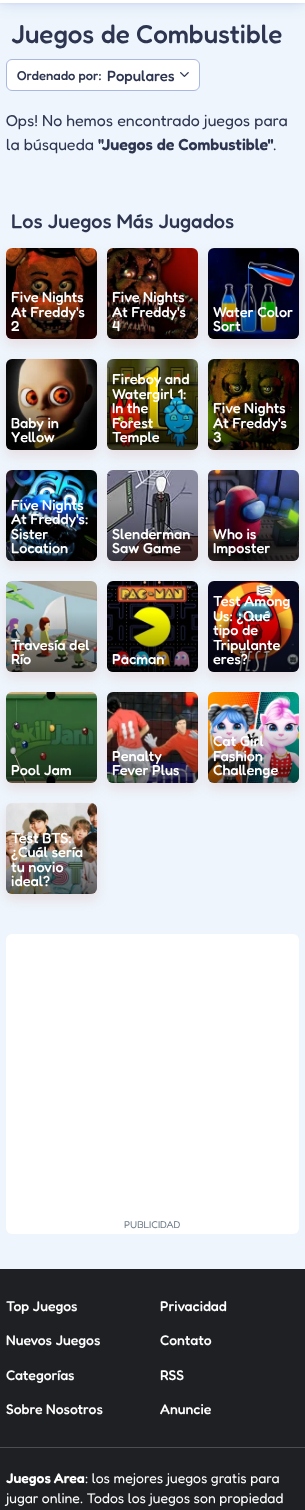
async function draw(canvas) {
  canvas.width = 305;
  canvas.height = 1510;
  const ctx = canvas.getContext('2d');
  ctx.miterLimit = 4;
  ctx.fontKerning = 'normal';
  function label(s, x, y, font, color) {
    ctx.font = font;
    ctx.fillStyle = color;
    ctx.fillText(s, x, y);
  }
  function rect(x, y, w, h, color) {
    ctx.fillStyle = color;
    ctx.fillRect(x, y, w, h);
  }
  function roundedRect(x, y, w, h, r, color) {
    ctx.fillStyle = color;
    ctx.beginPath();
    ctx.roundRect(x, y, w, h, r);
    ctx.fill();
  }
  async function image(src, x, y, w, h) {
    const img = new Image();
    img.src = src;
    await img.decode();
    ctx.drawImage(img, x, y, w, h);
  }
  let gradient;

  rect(0, 0, 305, 1510, '#eef5fc');
  ctx.fillStyle = '#193da90d';
  ctx.filter = 'blur(1px)';
  ctx.beginPath();
  ctx.rect(0, -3, 305, 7);
  ctx.fill();
  ctx.filter = 'none';
  ctx.fillStyle = '#193da926';
  ctx.filter = 'blur(7.5px)';
  ctx.beginPath();
  ctx.rect(0, -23, 305, 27);
  ctx.fill();
  ctx.filter = 'none';
  rect(0, 0, 305, 3, '#fff');
  label('Juegos de Combustible', 11, 43, '300 26px Fredoka', '#2d3550');
  ctx.fillStyle = '#fff';
  ctx.beginPath();
  ctx.roundRect(6.5, 59.5, 193, 31, 5.5);
  ctx.fill();
  ctx.strokeStyle = '#aab8e1';
  ctx.stroke();
  label('Ordenado por:', 17, 80, '300 13px Fredoka', '#2d3550');
  label('Populares', 107, 81, '300 15px Fredoka', '#2d3550');
  await image('assets/img1.png', 180, 72, 9, 5);
  label('Ops! No hemos encontrado juegos para', 6, 126, '300 16px "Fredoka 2"', '#2d3550');
  label('la búsqueda', 6, 150, '300 16px "Fredoka 2"', '#2d3550');
  label('"Juegos de Combustible"', 98, 150, '600 16px Fredoka', '#2d3550');
  label('.', 273, 150, '300 16px "Fredoka 2"', '#2d3550');
  label('Los Juegos Más Jugados', 11, 228, '300 20px Fredoka', '#2d3550');
  ctx.fillStyle = '#d398983d';
  ctx.filter = 'blur(6px)';
  ctx.beginPath();
  ctx.roundRect(6, 254, 91, 91, 6);
  ctx.fill();
  ctx.filter = 'none';
  await image('assets/img2.png', 6, 248, 91, 91);
  gradient = ctx.createLinearGradient(51, 279, 52, 339);
  gradient.addColorStop(0, '#00000000');
  gradient.addColorStop(1, '#0000008c');
  ctx.fillStyle = gradient;
  ctx.beginPath();
  ctx.roundRect(6, 279, 91, 60, [0, 0, 6, 6]);
  ctx.fill();
  label('Five Nights', 11, 302, '300 14.5px Fredoka', '#fff');
  label('At Freddy\'s', 11, 317, '300 14.5px Fredoka', '#fff');
  label('2', 11, 331, '300 14.5px Fredoka', '#fff');
  ctx.fillStyle = '#d398983d';
  ctx.filter = 'blur(6px)';
  ctx.beginPath();
  ctx.roundRect(107, 254, 91, 91, 6);
  ctx.fill();
  ctx.filter = 'none';
  await image('assets/img3.png', 107, 248, 91, 91);
  gradient = ctx.createLinearGradient(153, 279, 153, 339);
  gradient.addColorStop(0, '#00000000');
  gradient.addColorStop(1, '#0000008c');
  ctx.fillStyle = gradient;
  ctx.beginPath();
  ctx.roundRect(107, 279, 91, 60, [0, 0, 6, 6]);
  ctx.fill();
  label('Five Nights', 112, 302, '300 14.5px Fredoka', '#fff');
  label('At Freddy\'s', 112, 317, '300 14.5px Fredoka', '#fff');
  label('4', 112, 331, '300 14.5px Fredoka', '#fff');
  ctx.fillStyle = '#d398983d';
  ctx.filter = 'blur(6px)';
  ctx.beginPath();
  ctx.roundRect(208, 254, 91, 91, 6);
  ctx.fill();
  ctx.filter = 'none';
  await image('assets/img4.png', 208, 248, 91, 91);
  gradient = ctx.createLinearGradient(254, 279, 254, 339);
  gradient.addColorStop(0, '#00000000');
  gradient.addColorStop(1, '#0000008c');
  ctx.fillStyle = gradient;
  ctx.beginPath();
  ctx.roundRect(208, 279, 91, 60, [0, 0, 6, 6]);
  ctx.fill();
  label('Water Color', 213, 317, '300 14.5px Fredoka', '#fff');
  label('Sort', 213, 331, '300 14.5px Fredoka', '#fff');
  ctx.fillStyle = '#d398983d';
  ctx.filter = 'blur(6px)';
  ctx.beginPath();
  ctx.roundRect(6, 365, 91, 91, 6);
  ctx.fill();
  ctx.filter = 'none';
  await image('assets/img5.png', 6, 359, 91, 91);
  gradient = ctx.createLinearGradient(51, 390, 52, 450);
  gradient.addColorStop(0, '#00000000');
  gradient.addColorStop(1, '#0000008c');
  ctx.fillStyle = gradient;
  ctx.beginPath();
  ctx.roundRect(6, 390, 91, 60, [0, 0, 6, 6]);
  ctx.fill();
  label('Baby in', 11, 428, '300 14.5px Fredoka', '#fff');
  label('Yellow', 11, 442, '300 14.5px Fredoka', '#fff');
  ctx.fillStyle = '#d398983d';
  ctx.filter = 'blur(6px)';
  ctx.beginPath();
  ctx.roundRect(107, 365, 91, 91, 6);
  ctx.fill();
  ctx.filter = 'none';
  await image('assets/img6.png', 107, 359, 91, 91);
  label('Fireboy and', 112, 384, '300 14.5px Fredoka', '#fff');
  gradient = ctx.createLinearGradient(153, 390, 153, 450);
  gradient.addColorStop(0, '#00000000');
  gradient.addColorStop(1, '#0000008c');
  ctx.fillStyle = gradient;
  ctx.beginPath();
  ctx.roundRect(107, 390, 91, 60, [0, 0, 6, 6]);
  ctx.fill();
  label('Watergirl 1:', 112, 399, '300 14.5px Fredoka', '#fff');
  label('In the', 112, 413, '300 14.5px Fredoka', '#fff');
  label('Forest', 112, 428, '300 14.5px Fredoka', '#fff');
  label('Temple', 112, 442, '300 14.5px Fredoka', '#fff');
  ctx.fillStyle = '#d398983d';
  ctx.filter = 'blur(6px)';
  ctx.beginPath();
  ctx.roundRect(208, 365, 91, 91, 6);
  ctx.fill();
  ctx.filter = 'none';
  await image('assets/img7.png', 208, 359, 91, 91);
  gradient = ctx.createLinearGradient(254, 390, 254, 450);
  gradient.addColorStop(0, '#00000000');
  gradient.addColorStop(1, '#0000008c');
  ctx.fillStyle = gradient;
  ctx.beginPath();
  ctx.roundRect(208, 390, 91, 60, [0, 0, 6, 6]);
  ctx.fill();
  label('Five Nights', 213, 413, '300 14.5px Fredoka', '#fff');
  label('At Freddy\'s', 213, 428, '300 14.5px Fredoka', '#fff');
  label('3', 213, 442, '300 14.5px Fredoka', '#fff');
  ctx.fillStyle = '#d398983d';
  ctx.filter = 'blur(6px)';
  ctx.beginPath();
  ctx.roundRect(6, 476, 91, 91, 6);
  ctx.fill();
  ctx.filter = 'none';
  await image('assets/img8.png', 6, 470, 91, 91);
  gradient = ctx.createLinearGradient(51, 501, 52, 561);
  gradient.addColorStop(0, '#00000000');
  gradient.addColorStop(1, '#0000008c');
  ctx.fillStyle = gradient;
  ctx.beginPath();
  ctx.roundRect(6, 501, 91, 60, [0, 0, 6, 6]);
  ctx.fill();
  label('Five Nights', 11, 510, '300 14.5px Fredoka', '#fff');
  label('At Freddy\'s:', 11, 524, '300 14.5px Fredoka', '#fff');
  label('Sister', 11, 539, '300 14.5px Fredoka', '#fff');
  label('Location', 11, 553, '300 14.5px Fredoka', '#fff');
  ctx.fillStyle = '#d398983d';
  ctx.filter = 'blur(6px)';
  ctx.beginPath();
  ctx.roundRect(107, 476, 91, 91, 6);
  ctx.fill();
  ctx.filter = 'none';
  await image('assets/img9.png', 107, 470, 91, 91);
  gradient = ctx.createLinearGradient(153, 501, 153, 561);
  gradient.addColorStop(0, '#00000000');
  gradient.addColorStop(1, '#0000008c');
  ctx.fillStyle = gradient;
  ctx.beginPath();
  ctx.roundRect(107, 501, 91, 60, [0, 0, 6, 6]);
  ctx.fill();
  label('Slenderman', 112, 539, '300 14.5px Fredoka', '#fff');
  label('Saw Game', 112, 553, '300 14.5px Fredoka', '#fff');
  ctx.fillStyle = '#d398983d';
  ctx.filter = 'blur(6px)';
  ctx.beginPath();
  ctx.roundRect(208, 476, 91, 91, 6);
  ctx.fill();
  ctx.filter = 'none';
  await image('assets/img10.png', 208, 470, 91, 91);
  gradient = ctx.createLinearGradient(254, 501, 254, 561);
  gradient.addColorStop(0, '#00000000');
  gradient.addColorStop(1, '#0000008c');
  ctx.fillStyle = gradient;
  ctx.beginPath();
  ctx.roundRect(208, 501, 91, 60, [0, 0, 6, 6]);
  ctx.fill();
  label('Who is', 213, 539, '300 14.5px Fredoka', '#fff');
  label('Imposter', 213, 553, '300 14.5px Fredoka', '#fff');
  ctx.fillStyle = '#d398983d';
  ctx.filter = 'blur(6px)';
  ctx.beginPath();
  ctx.roundRect(6, 587, 91, 91, 6);
  ctx.fill();
  ctx.filter = 'none';
  await image('assets/img11.png', 6, 581, 91, 91);
  gradient = ctx.createLinearGradient(51, 612, 52, 672);
  gradient.addColorStop(0, '#00000000');
  gradient.addColorStop(1, '#0000008c');
  ctx.fillStyle = gradient;
  ctx.beginPath();
  ctx.roundRect(6, 612, 91, 60, [0, 0, 6, 6]);
  ctx.fill();
  label('Travesía del', 11, 650, '300 14.5px Fredoka', '#fff');
  label('Río', 11, 664, '300 14.5px Fredoka', '#fff');
  ctx.fillStyle = '#d398983d';
  ctx.filter = 'blur(6px)';
  ctx.beginPath();
  ctx.roundRect(107, 587, 91, 91, 6);
  ctx.fill();
  ctx.filter = 'none';
  await image('assets/img12.png', 107, 581, 91, 91);
  gradient = ctx.createLinearGradient(153, 612, 153, 672);
  gradient.addColorStop(0, '#00000000');
  gradient.addColorStop(1, '#0000008c');
  ctx.fillStyle = gradient;
  ctx.beginPath();
  ctx.roundRect(107, 612, 91, 60, [0, 0, 6, 6]);
  ctx.fill();
  label('Pacman', 112, 664, '300 14.5px Fredoka', '#fff');
  ctx.fillStyle = '#d398983d';
  ctx.filter = 'blur(6px)';
  ctx.beginPath();
  ctx.roundRect(208, 587, 91, 91, 6);
  ctx.fill();
  ctx.filter = 'none';
  await image('assets/img13.png', 208, 581, 91, 91);
  label('Test Among', 213, 606, '300 14.5px Fredoka', '#fff');
  gradient = ctx.createLinearGradient(254, 612, 254, 672);
  gradient.addColorStop(0, '#00000000');
  gradient.addColorStop(1, '#0000008c');
  ctx.fillStyle = gradient;
  ctx.beginPath();
  ctx.roundRect(208, 612, 91, 60, [0, 0, 6, 6]);
  ctx.fill();
  label('Us: ¿Qué', 213, 621, '300 14.5px Fredoka', '#fff');
  label('tipo de', 213, 635, '300 14.5px Fredoka', '#fff');
  label('Tripulante', 213, 650, '300 14.5px Fredoka', '#fff');
  label('eres?', 213, 664, '300 14.5px Fredoka', '#fff');
  ctx.fillStyle = '#d398983d';
  ctx.filter = 'blur(6px)';
  ctx.beginPath();
  ctx.roundRect(6, 698, 91, 91, 6);
  ctx.fill();
  ctx.filter = 'none';
  await image('assets/img14.png', 6, 692, 91, 91);
  gradient = ctx.createLinearGradient(51, 723, 52, 783);
  gradient.addColorStop(0, '#00000000');
  gradient.addColorStop(1, '#0000008c');
  ctx.fillStyle = gradient;
  ctx.beginPath();
  ctx.roundRect(6, 723, 91, 60, [0, 0, 6, 6]);
  ctx.fill();
  label('Pool Jam', 11, 775, '300 14.5px Fredoka', '#fff');
  ctx.fillStyle = '#d398983d';
  ctx.filter = 'blur(6px)';
  ctx.beginPath();
  ctx.roundRect(107, 698, 91, 91, 6);
  ctx.fill();
  ctx.filter = 'none';
  await image('assets/img15.png', 107, 692, 91, 91);
  gradient = ctx.createLinearGradient(153, 723, 153, 783);
  gradient.addColorStop(0, '#00000000');
  gradient.addColorStop(1, '#0000008c');
  ctx.fillStyle = gradient;
  ctx.beginPath();
  ctx.roundRect(107, 723, 91, 60, [0, 0, 6, 6]);
  ctx.fill();
  label('Penalty', 112, 761, '300 14.5px Fredoka', '#fff');
  label('Fever Plus', 112, 775, '300 14.5px Fredoka', '#fff');
  ctx.fillStyle = '#d398983d';
  ctx.filter = 'blur(6px)';
  ctx.beginPath();
  ctx.roundRect(208, 698, 91, 91, 6);
  ctx.fill();
  ctx.filter = 'none';
  await image('assets/img16.png', 208, 692, 91, 91);
  gradient = ctx.createLinearGradient(254, 723, 254, 783);
  gradient.addColorStop(0, '#00000000');
  gradient.addColorStop(1, '#0000008c');
  ctx.fillStyle = gradient;
  ctx.beginPath();
  ctx.roundRect(208, 723, 91, 60, [0, 0, 6, 6]);
  ctx.fill();
  label('Cat Girl', 213, 746, '300 14.5px Fredoka', '#fff');
  label('Fashion', 213, 761, '300 14.5px Fredoka', '#fff');
  label('Challenge', 213, 775, '300 14.5px Fredoka', '#fff');
  ctx.fillStyle = '#d398983d';
  ctx.filter = 'blur(6px)';
  ctx.beginPath();
  ctx.roundRect(6, 809, 91, 91, 6);
  ctx.fill();
  ctx.filter = 'none';
  await image('assets/img17.png', 6, 803, 91, 91);
  gradient = ctx.createLinearGradient(51, 834, 52, 894);
  gradient.addColorStop(0, '#00000000');
  gradient.addColorStop(1, '#0000008c');
  ctx.fillStyle = gradient;
  ctx.beginPath();
  ctx.roundRect(6, 834, 91, 60, [0, 0, 6, 6]);
  ctx.fill();
  label('Test BTS:', 11, 843, '300 14.5px Fredoka', '#fff');
  label('¿Cuál sería', 11, 857, '300 14.5px Fredoka', '#fff');
  label('tu novio', 11, 872, '300 14.5px Fredoka', '#fff');
  label('ideal?', 11, 886, '300 14.5px Fredoka', '#fff');
  roundedRect(6, 934, 293, 300, 6, '#fff');
  label('PUBLICIDAD', 124, 1228, '300 10px "Fredoka 2"', '#6f7e8a');
  rect(0, 1269, 305, 241, '#1f2024');
  label('Top Juegos', 6, 1311, '300 14px Fredoka', '#fff');
  label('Privacidad', 160, 1311, '300 14px Fredoka', '#fff');
  label('Nuevos Juegos', 6, 1345, '300 14px Fredoka', '#fff');
  label('Contato', 160, 1345, '300 14px Fredoka', '#fff');
  label('Categorías', 6, 1380, '300 14px Fredoka', '#fff');
  label('RSS', 160, 1380, '300 14px Fredoka', '#fff');
  label('Sobre Nosotros', 6, 1414, '300 14px Fredoka', '#fff');
  label('Anuncie', 160, 1414, '300 14px Fredoka', '#fff');
  rect(0, 1447, 305, 1, '#4c4d50');
  label('Juegos Area', 6, 1483, '600 14px Fredoka', '#fff');
  label(': los mejores juegos gratis para', 85, 1483, '300 14px "Fredoka 2"', '#fff');
  label('jugar online. Todos los juegos son propiedad', 6, 1503, '300 14px "Fredoka 2"', '#fff');
}

draw(document.querySelector('canvas'));
